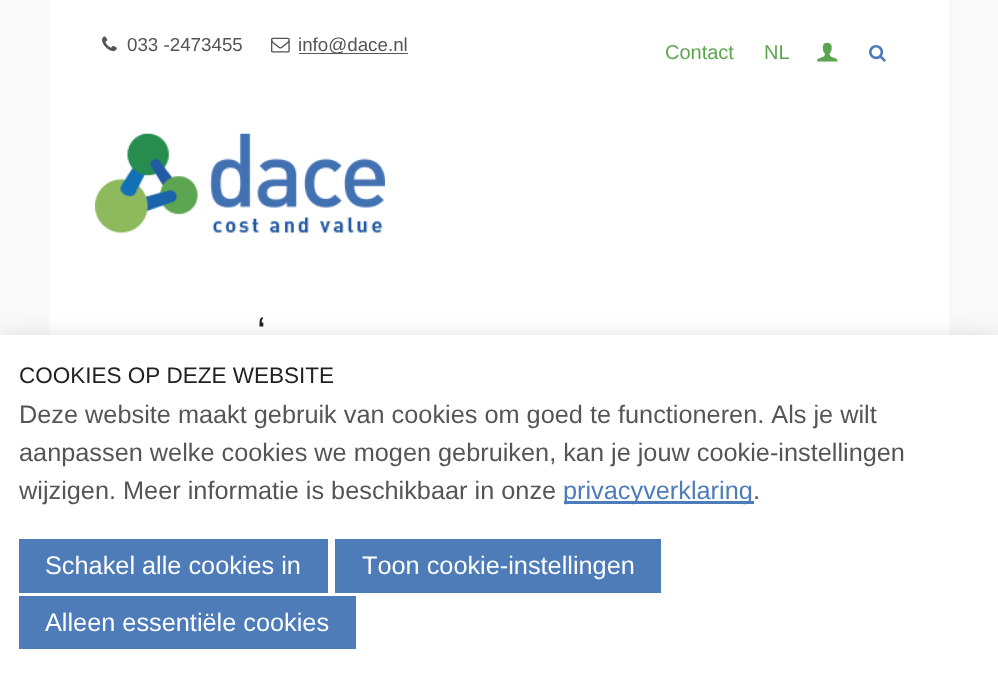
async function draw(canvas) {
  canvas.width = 998;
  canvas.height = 677;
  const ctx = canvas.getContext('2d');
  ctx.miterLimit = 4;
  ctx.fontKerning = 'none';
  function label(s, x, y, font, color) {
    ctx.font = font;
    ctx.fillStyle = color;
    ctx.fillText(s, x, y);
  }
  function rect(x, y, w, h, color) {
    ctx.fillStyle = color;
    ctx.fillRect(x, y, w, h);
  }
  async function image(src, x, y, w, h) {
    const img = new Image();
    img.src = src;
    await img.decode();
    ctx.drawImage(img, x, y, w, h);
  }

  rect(0, 0, 998, 677, '#f9f9f9');
  rect(50, 0, 899, 335, '#fff');
  label('📞', 102, 51, '18.75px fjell', '#555');
  label('033 -2473455', 127, 51, '18.75px Liberation Sans', '#555');
  label('✉', 271, 51, '18.75px fjell', '#555');
  rect(299, 53, 109, 1, '#555');
  label('info@dace.nl', 298, 51, '18.75px Liberation Sans', '#555');
  label('Contact', 665, 59, '20px Liberation Sans', '#5da450');
  label('NL', 764, 59, '20px Liberation Sans', '#5da450');
  label('👤', 817, 59, '20px fjell', '#5da450');
  label('🔎', 869, 59, '18px fjell', '#4d7cb9');
  await image('assets/img1.png', 95, 133, 290, 100);
  label('‘', 257, 345, '40px Liberation Sans', '#222');
  ctx.fillStyle = '#00000033';
  ctx.filter = 'blur(12.5px)';
  ctx.beginPath();
  ctx.rect(0, 341, 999, 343);
  ctx.fill();
  ctx.filter = 'none';
  rect(0, 335, 998, 342, '#fff');
  label('COOKIES OP DEZE WEBSITE', 19, 383, '22.5px Liberation Sans', '#222');
  label('Deze website maakt gebruik van cookies om goed te functioneren. Als je wilt', 19, 423, '25.3px Liberation Sans', '#555');
  label('aanpassen welke cookies we mogen gebruiken, kan je jouw cookie-instellingen', 19, 461, '25.3px Liberation Sans', '#555');
  label('wijzigen. Meer informatie is beschikbaar in onze', 19, 499, '25.3px Liberation Sans', '#555');
  rect(564, 501, 190, 3, '#4d7cb9');
  label('privacyverklaring', 563, 499, '25.3px Liberation Sans', '#4d7cb9');
  label('.', 753, 499, '25.3px Liberation Sans', '#555');
  rect(19, 539, 309, 54, '#4d7cb9');
  label('Schakel alle cookies in', 45, 574, '25.3px Liberation Sans', '#fff');
  rect(335, 539, 326, 54, '#4d7cb9');
  label('Toon cookie-instellingen', 362, 574, '25.3px Liberation Sans', '#fff');
  rect(19, 596, 337, 53, '#4d7cb9');
  label('Alleen essentiële cookies', 45, 631, '25.3px Liberation Sans', '#fff');
}

draw(document.querySelector('canvas'));
